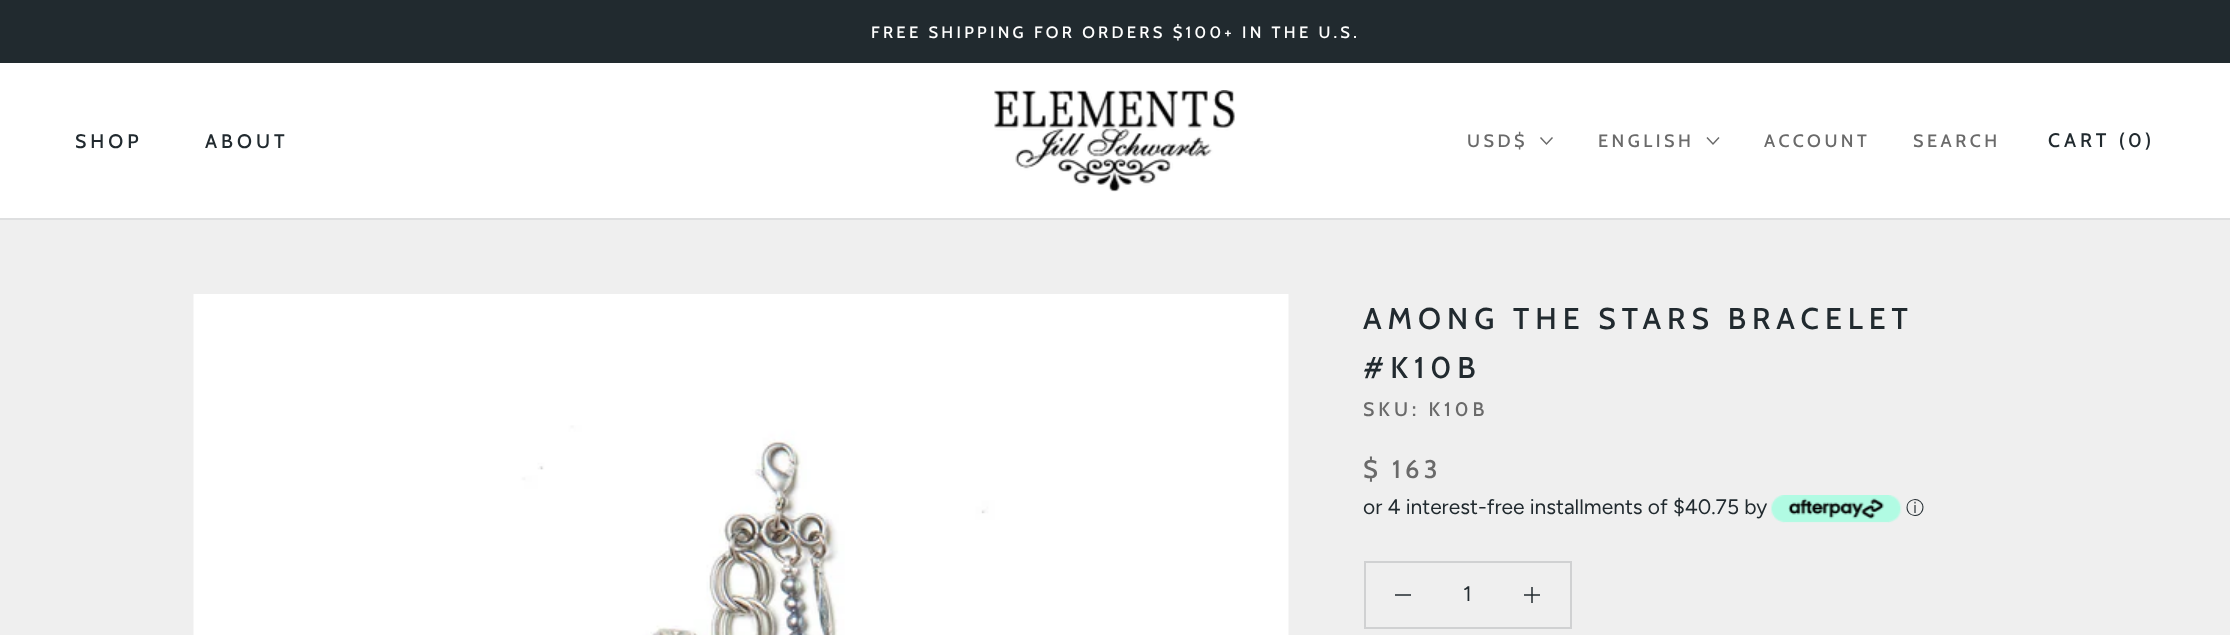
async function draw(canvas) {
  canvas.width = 2230;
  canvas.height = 635;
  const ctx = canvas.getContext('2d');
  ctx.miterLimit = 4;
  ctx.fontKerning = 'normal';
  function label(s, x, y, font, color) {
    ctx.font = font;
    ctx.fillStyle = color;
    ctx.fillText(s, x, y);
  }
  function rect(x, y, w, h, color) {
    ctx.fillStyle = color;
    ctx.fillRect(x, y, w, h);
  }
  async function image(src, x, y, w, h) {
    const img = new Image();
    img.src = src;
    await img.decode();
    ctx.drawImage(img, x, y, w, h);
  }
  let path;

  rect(0, 0, 2230, 635, '#efefef');
  rect(1524, 594, 16, 2, '#555b5f');
  rect(0, 0, 2230, 63, '#212a2f');
  ctx.letterSpacing = '3.3px';
  label('FREE SHIPPING FOR ORDERS $100+ IN THE U.S.', 871, 38, '500 16.5px Cabin', '#fff');
  rect(0, 63, 2230, 155, '#fff');
  rect(0, 218, 2230, 2, '#dedfe0');
  ctx.letterSpacing = '4px';
  label('SHOP', 75, 148, '500 19.5px Cabin', '#212a2f');
  label('ABOUT', 205, 148, '500 19.5px Cabin', '#212a2f');
  await image('assets/img1.png', 994, 90, 241, 102);
  ctx.letterSpacing = '3.5px';
  label('USD$', 1467, 147, '500 18px Cabin', '#6a6a6a');
  path = new Path2D('M1552 138L1546.5 144L1541 138');
  ctx.strokeStyle = '#6a6a6a';
  ctx.lineWidth = 1.5;
  ctx.lineCap = 'square';
  ctx.stroke(path);
  label('ENGLISH', 1598, 147, '500 18px Cabin', '#6a6a6a');
  path = new Path2D('M1718.5 138L1713 144L1707.5 138');
  ctx.stroke(path);
  label('ACCOUNT', 1764, 147, '500 18px Cabin', '#6a6a6a');
  label('SEARCH', 1913, 147, '500 18px Cabin', '#6a6a6a');
  ctx.letterSpacing = '4px';
  label('CART (', 2048, 147, '500 19.5px Cabin', '#212a2f');
  label('0', 2128, 147, '500 19.5px Cabin', '#212a2f');
  label(')', 2145, 147, '500 19.5px Cabin', '#212a2f');
  await image('assets/img2.png', 193, 294, 1096, 341);
  ctx.letterSpacing = '6px';
  label('AMONG THE STARS BRACELET', 1363, 329, '500 30px Cabin', '#212a2f');
  label('#K10B', 1363, 378, '500 30px Cabin', '#212a2f');
  ctx.letterSpacing = '4px';
  label('SKU: K10B', 1363, 416, '500 19.5px Cabin', '#6a6a6a');
  ctx.letterSpacing = '4.25px';
  label('$ 163', 1363, 478, '500 25.5px Cabin', '#6a6a6a');
  ctx.letterSpacing = '0px';
  label('or 4 interest-free installments of $40.75 by', 1363, 514, '21px Figtree', '#212a2f');
  await image('assets/img3.png', 1771, 495, 131, 28);
  label('ⓘ', 1906, 514, '500 18px WenQuanYi Zen Hei', '#212a2f');
  ctx.strokeStyle = '#d0d1d2';
  ctx.lineWidth = 2;
  ctx.strokeRect(1365, 562, 206, 66);
  rect(1395, 594, 16, 2, '#555b5f');
  label('1', 1463, 601, '21px Figtree', '#212a2f');
  rect(1531, 587, 2, 16, '#555b5f');
  rect(1531, 594, 2, 2, '#2e363b');
}

draw(document.querySelector('canvas'));
